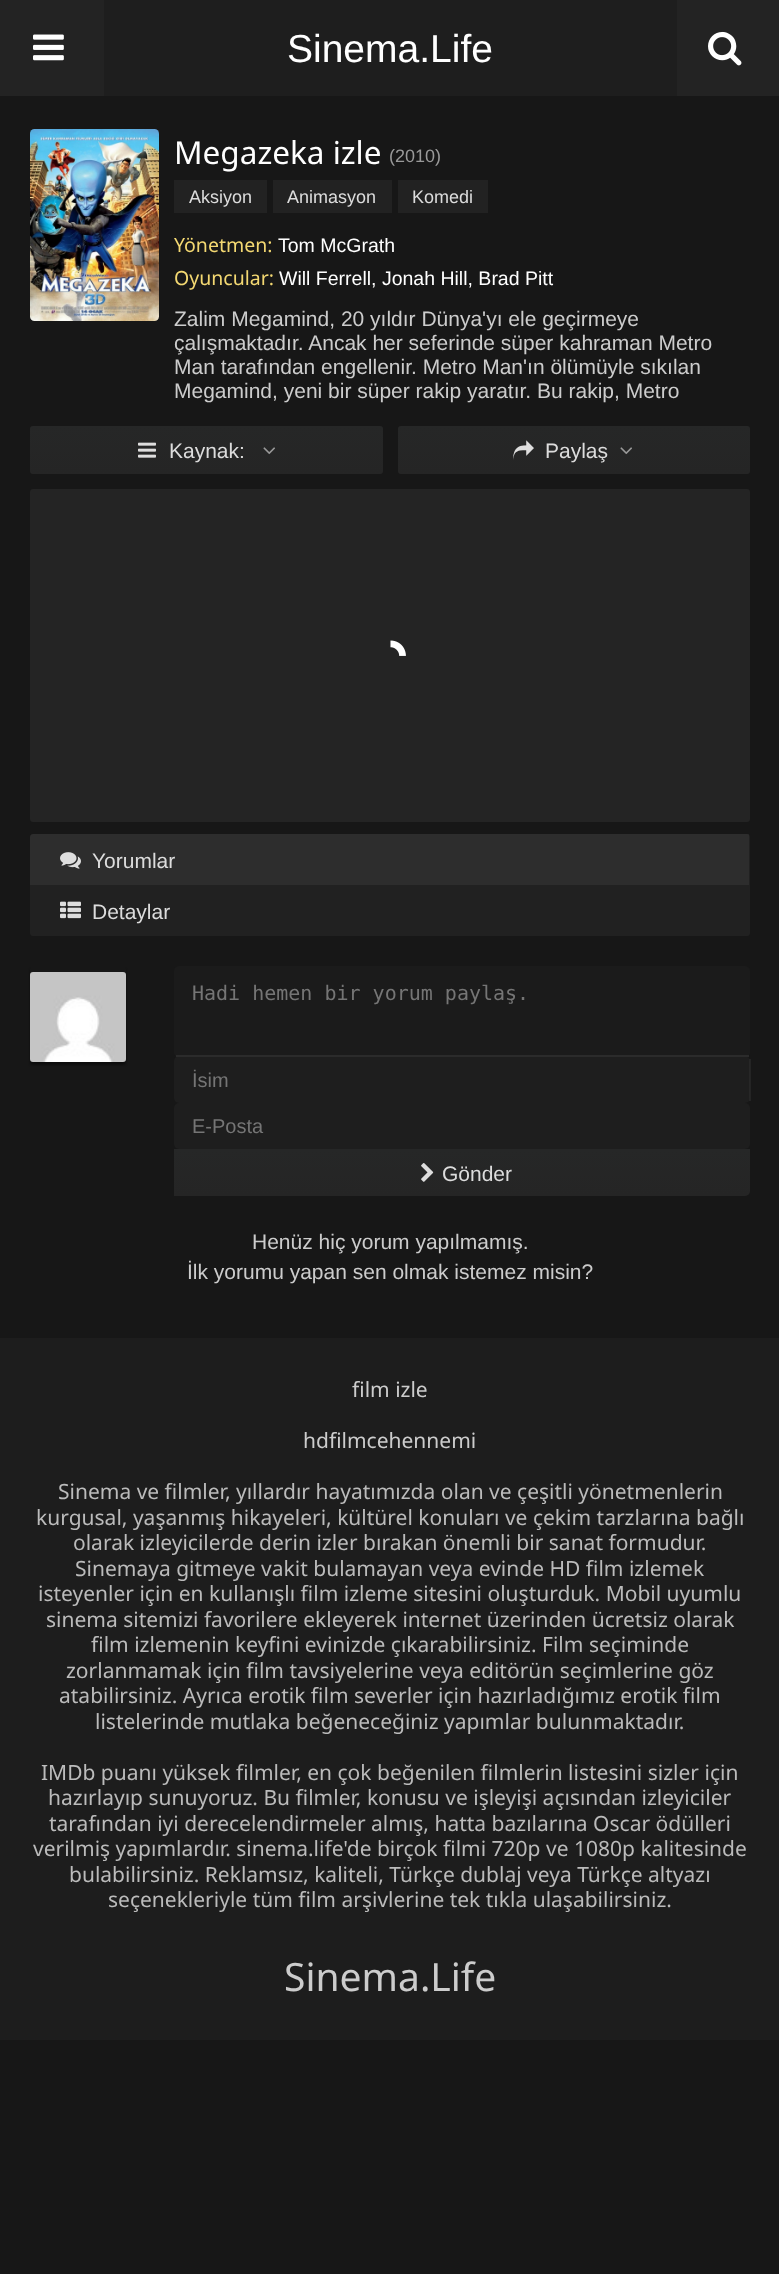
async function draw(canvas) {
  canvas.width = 779;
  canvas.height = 2274;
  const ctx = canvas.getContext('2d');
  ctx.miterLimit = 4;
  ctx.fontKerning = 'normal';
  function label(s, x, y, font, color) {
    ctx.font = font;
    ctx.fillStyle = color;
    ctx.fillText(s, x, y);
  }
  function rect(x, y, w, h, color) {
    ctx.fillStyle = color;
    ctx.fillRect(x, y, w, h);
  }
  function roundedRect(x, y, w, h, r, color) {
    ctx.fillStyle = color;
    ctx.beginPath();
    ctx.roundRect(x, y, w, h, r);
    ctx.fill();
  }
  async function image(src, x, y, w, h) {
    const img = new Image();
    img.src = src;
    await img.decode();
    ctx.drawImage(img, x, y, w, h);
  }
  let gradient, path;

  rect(0, 0, 779, 2274, '#171717');
  rect(104, 0, 573, 96, '#1e1e1e');
  rect(0, 0, 104, 96, '#232323');
  await image('assets/img1.png', 33, 34, 31, 27);
  label('Sinema.Life', 287, 62, '39px Liberation Sans', '#fff');
  rect(677, 0, 102, 96, '#232323');
  await image('assets/img2.png', 708, 31, 34, 35);
  await image('assets/img3.png', 30, 129, 129, 192);
  label('Megazeka izle', 174, 164, '31.5px Noto Sans', '#fff');
  label('(2010)', 389, 162, '18px Liberation Sans', '#999');
  rect(174, 180, 93, 33, '#222');
  label('Aksiyon', 189, 203, '18px Liberation Sans', '#dcdcdc');
  rect(273, 180, 119, 33, '#222');
  label('Animasyon', 287, 203, '18px Liberation Sans', '#dcdcdc');
  rect(398, 180, 90, 33, '#222');
  label('Komedi', 412, 203, '18px Liberation Sans', '#dcdcdc');
  label('Yönetmen:', 174, 252, '19.5px Noto Sans', '#f3d872');
  label('Tom McGrath', 278, 252, '19.5px Liberation Sans', '#fff');
  label('Oyuncular:', 174, 285, '19.5px Noto Sans', '#f3d872');
  label('Will Ferrell, Jonah Hill, Brad Pitt', 279, 285, '19.5px Liberation Sans', '#fff');
  label('Zalim Megamind, 20 yıldır Dünya\'yı ele geçirmeye', 174, 326, '21px Liberation Sans', '#ccc');
  label('çalışmaktadır. Ancak her seferinde süper kahraman Metro', 174, 350, '21px Liberation Sans', '#ccc');
  label('Man tarafından engellenir. Metro Man\'ın ölümüyle sıkılan', 174, 374, '21px Liberation Sans', '#ccc');
  label('Megamind, yeni bir süper rakip yaratır. Bu rakip, Metro', 174, 398, '21px Liberation Sans', '#ccc');
  gradient = ctx.createLinearGradient(206, 426, 206, 474);
  gradient.addColorStop(0, '#262727');
  gradient.addColorStop(1, '#252525');
  ctx.fillStyle = gradient;
  ctx.beginPath();
  ctx.roundRect(30, 426, 353, 48, 3);
  ctx.fill();
  await image('assets/img4.png', 138, 442, 18, 16);
  label('Kaynak:', 169, 458, '21px Liberation Sans', '#dcdcdc');
  await image('assets/img5.png', 263, 447, 12, 8);
  gradient = ctx.createLinearGradient(574, 426, 574, 474);
  gradient.addColorStop(0, '#262727');
  gradient.addColorStop(1, '#252525');
  ctx.fillStyle = gradient;
  ctx.beginPath();
  ctx.roundRect(398, 426, 352, 48, 3);
  ctx.fill();
  await image('assets/img6.png', 513, 440, 21, 20);
  label('Paylaş', 545, 458, '21px Liberation Sans', '#dcdcdc');
  await image('assets/img5.png', 620, 447, 12, 8);
  roundedRect(30, 489, 720, 333, 3, '#242424');
  await image('assets/img7.png', 390, 640, 16, 16);
  roundedRect(30, 834, 720, 102, 3, '#212121');
  ctx.save();
  ctx.beginPath();
  ctx.roundRect(30, 834, 720, 102, 3);
  ctx.clip();
  ctx.fillStyle = '#2d2d2d';
  ctx.beginPath();
  ctx.roundRect(30, 834, 719, 51, [3, 0, 0, 0]);
  ctx.fill();
  ctx.restore();
  await image('assets/img8.png', 60, 852, 21, 17);
  label('Yorumlar', 92, 868, '21px Liberation Sans', '#dcdcdc');
  await image('assets/img9.png', 60, 901, 21, 18);
  label('Detaylar', 92, 919, '21px Liberation Sans', '#dcdcdc');
  ctx.save();
  path = new Path2D('M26 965H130V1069H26ZM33 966H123C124.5 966 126 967.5 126 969V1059C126 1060.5 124.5 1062 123 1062H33C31.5 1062 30 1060.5 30 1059V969C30 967.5 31.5 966 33 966Z');
  ctx.clip(path, 'evenodd');
  ctx.fillStyle = '#00000070';
  ctx.filter = 'blur(1px)';
  ctx.beginPath();
  ctx.roundRect(30, 969, 96, 96, 3);
  ctx.fill();
  ctx.filter = 'none';
  ctx.restore();
  await image('assets/img10.png', 30, 972, 96, 90);
  ctx.fillStyle = '#1b1b1b';
  ctx.beginPath();
  ctx.roundRect(174, 966, 576, 90, [5, 5, 3, 3]);
  ctx.fill();
  roundedRect(174, 1056, 576, 47, 5, '#1e1e1e');
  rect(176, 1055, 573, 2, '#2b2b2b');
  label('Hadi hemen bir yorum paylaş.', 192, 1000, '20px DejaVu Sans Mono', '#757575');
  rect(749, 1059, 2, 42, '#2b2b2bb3');
  label('İsim', 192, 1087, '20px Liberation Sans', '#757575');
  roundedRect(174, 1103, 576, 46, 5, '#1e1e1e');
  label('E-Posta', 192, 1133, '20px Liberation Sans', '#757575');
  gradient = ctx.createLinearGradient(462, 1149, 462, 1196);
  gradient.addColorStop(0, '#262727');
  gradient.addColorStop(1, '#252525');
  ctx.fillStyle = gradient;
  ctx.beginPath();
  ctx.roundRect(174, 1149, 576, 47, [0, 0, 5, 0]);
  ctx.fill();
  await image('assets/img11.png', 421, 1163, 13, 19);
  label('Gönder', 442, 1181, '21px Liberation Sans', '#dcdcdc');
  label('Henüz hiç yorum yapılmamış.', 252, 1249, '21px Liberation Sans', '#ccc');
  label('İlk yorumu yapan sen olmak istemez misin?', 187, 1279, '21px Liberation Sans', '#ccc');
  rect(0, 1338, 779, 702, '#1d1d1d');
  label('film izle', 352, 1397, '21px Noto Sans', '#ccc');
  label('hdfilmcehennemi', 303, 1448, '21px Noto Sans', '#ccc');
  label('Sinema ve filmler, yıllardır hayatımızda olan ve çeşitli yönetmenlerin', 58, 1499, '21px Noto Sans', '#bbb');
  label('kurgusal, yaşanmış hikayeleri, kültürel konuları ve çekim tarzlarına bağlı', 36, 1525, '21px Noto Sans', '#bbb');
  label('olarak izleyicilerde derin izler bırakan önemli bir sanat formudur.', 73, 1550, '21px Noto Sans', '#bbb');
  label('Sinemaya gitmeye vakit bulamayan veya evinde HD film izlemek', 75, 1576, '21px Noto Sans', '#bbb');
  label('isteyenler için en kullanışlı film izleme sitesini oluşturduk. Mobil uyumlu', 38, 1601, '21px Noto Sans', '#bbb');
  label('sinema sitemizi favorilere ekleyerek internet üzerinden ücretsiz olarak', 46, 1627, '21px Noto Sans', '#bbb');
  label('film izlemenin keyfini evinizde çıkarabilirsiniz. Film seçiminde', 91, 1652, '21px Noto Sans', '#bbb');
  label('zorlanmamak için film tavsiyelerine veya editörün seçimlerine göz', 66, 1678, '21px Noto Sans', '#bbb');
  label('atabilirsiniz. Ayrıca erotik film severler için hazırladığımız erotik film', 59, 1703, '21px Noto Sans', '#bbb');
  label('listelerinde mutlaka beğeneceğiniz yapımlar bulunmaktadır.', 95, 1729, '21px Noto Sans', '#bbb');
  label('IMDb puanı yüksek filmler, en çok beğenilen filmlerin listesini sizler için', 41, 1780, '21px Noto Sans', '#bbb');
  label('hazırlayıp sunuyoruz. Bu filmler, konusu ve işleyişi açısından izleyiciler', 48, 1805, '21px Noto Sans', '#bbb');
  label('tarafından iyi derecelendirmeler almış, hatta bazılarına Oscar ödülleri', 49, 1831, '21px Noto Sans', '#bbb');
  label('verilmiş yapımlardır. sinema.life\'de birçok filmi 720p ve 1080p kalitesinde', 33, 1856, '21px Noto Sans', '#bbb');
  label('bulabilirsiniz. Reklamsız, kaliteli, Türkçe dublaj veya Türkçe altyazı', 69, 1882, '21px Noto Sans', '#bbb');
  label('seçenekleriyle tüm film arşivlerine tek tıkla ulaşabilirsiniz.', 108, 1907, '21px Noto Sans', '#bbb');
  label('Sinema.Life', 284, 1991, '39px Noto Sans', '#ccc');
}

draw(document.querySelector('canvas'));
